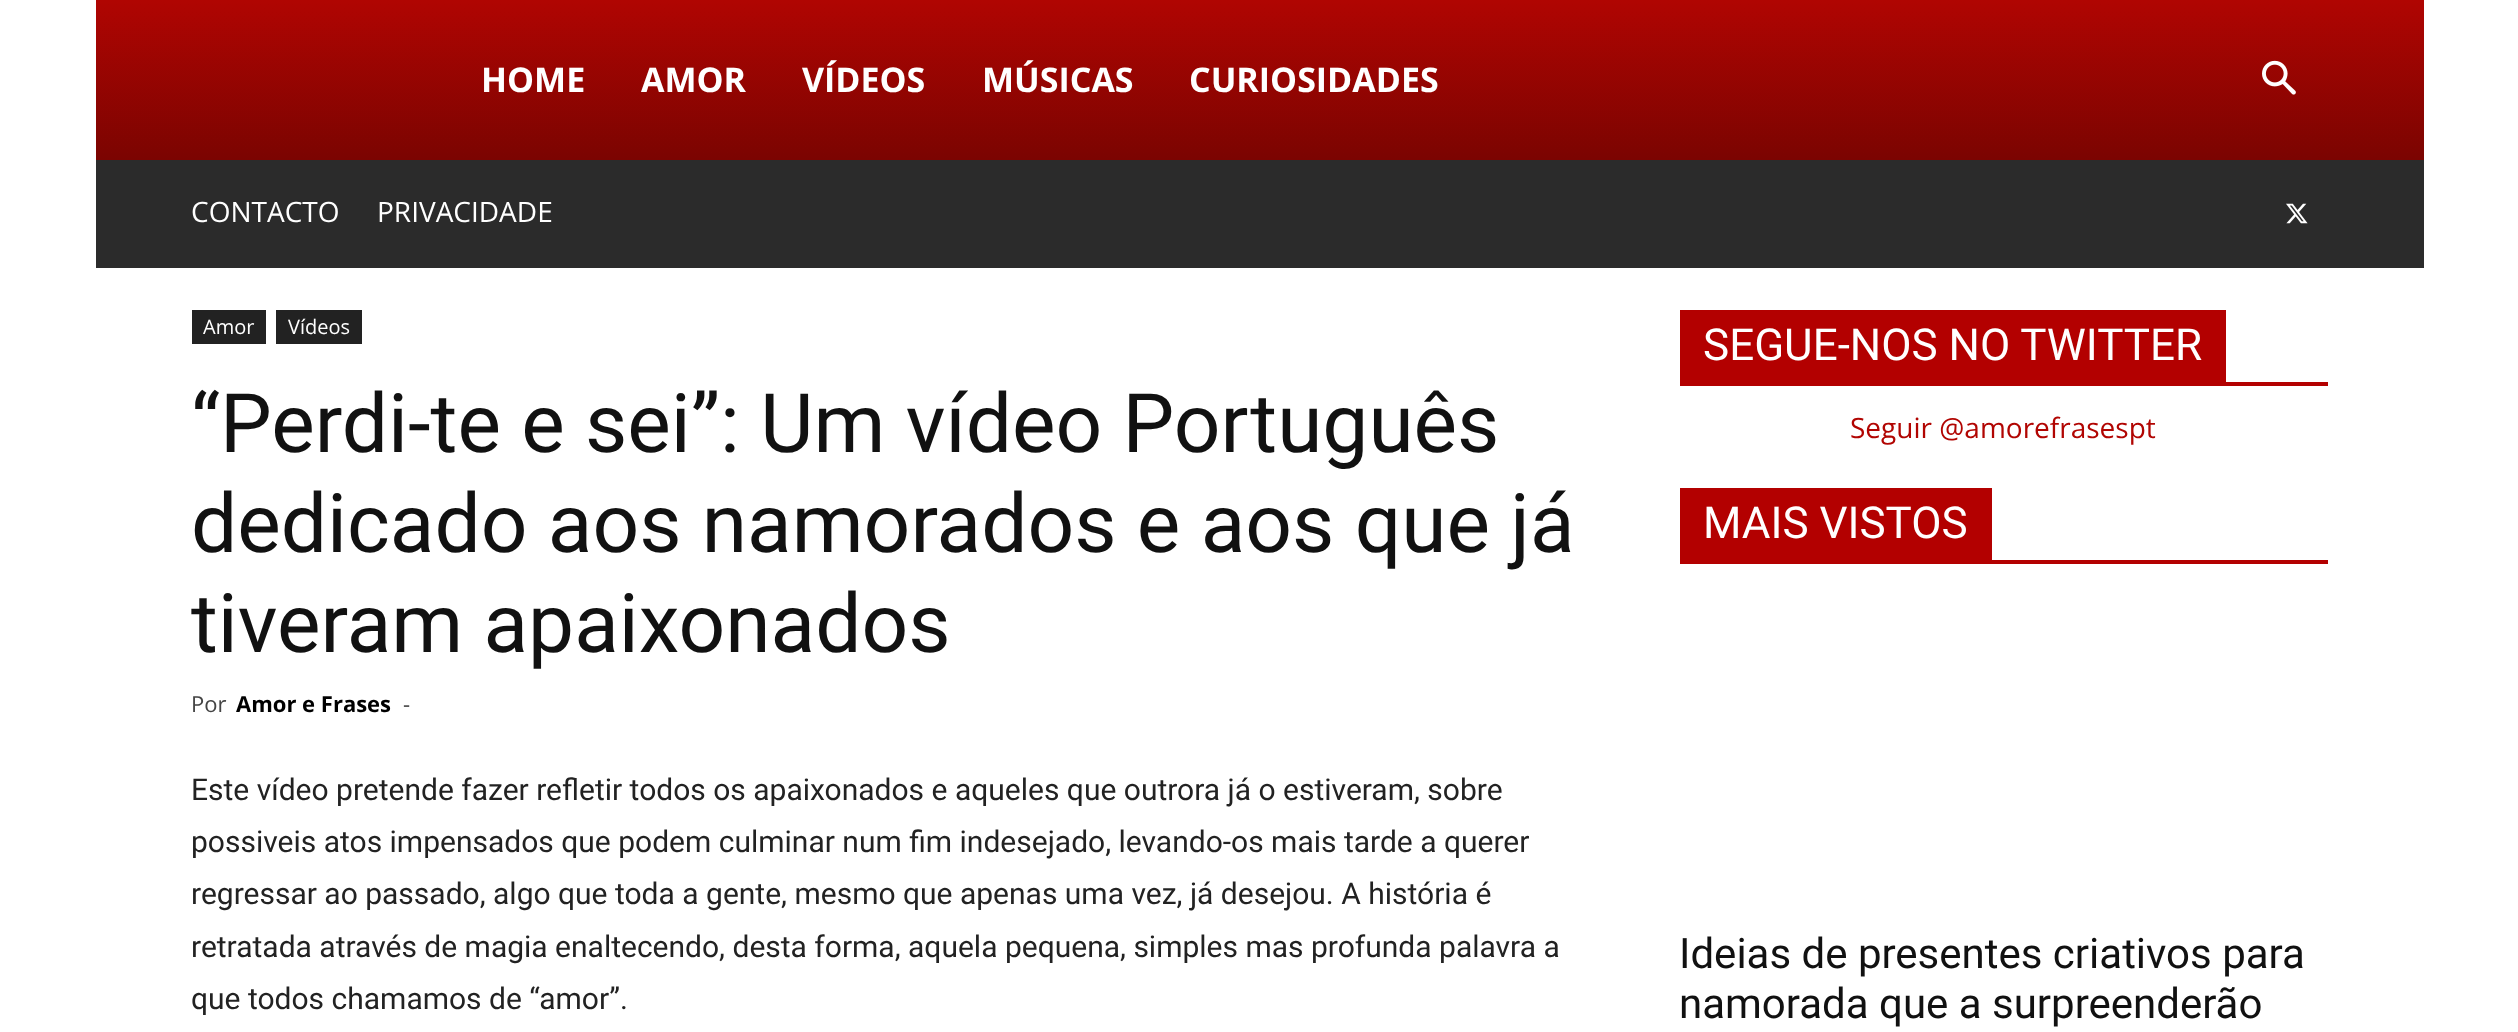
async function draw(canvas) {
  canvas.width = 2518;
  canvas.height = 1032;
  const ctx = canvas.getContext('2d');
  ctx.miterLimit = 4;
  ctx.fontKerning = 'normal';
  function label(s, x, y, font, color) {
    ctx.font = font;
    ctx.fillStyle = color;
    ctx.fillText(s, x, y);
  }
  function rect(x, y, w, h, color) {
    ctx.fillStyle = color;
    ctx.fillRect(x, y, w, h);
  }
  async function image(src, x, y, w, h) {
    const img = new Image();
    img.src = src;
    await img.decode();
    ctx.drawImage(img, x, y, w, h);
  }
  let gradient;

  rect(0, 0, 2518, 1032, '#fff');
  gradient = ctx.createLinearGradient(1260, 0, 1260, 160);
  gradient.addColorStop(0, '#b00502');
  gradient.addColorStop(1, '#7b0401');
  ctx.fillStyle = gradient;
  ctx.fillRect(96, 0, 2328, 160);
  label('HOME', 481, 92, 'bold 34px Open Sans', '#fff');
  label('AMOR', 641, 92, 'bold 34px Open Sans', '#fff');
  label('VÍDEOS', 802, 92, 'bold 34px Open Sans', '#fff');
  label('MÚSICAS', 982, 92, 'bold 34px Open Sans', '#fff');
  label('CURIOSIDADES', 1189, 92, 'bold 34px Open Sans', '#fff');
  await image('assets/img1.png', 2262, 60, 34, 35);
  rect(96, 160, 2328, 108, '#2b2b2b');
  label('CONTACTO', 191, 222, '28px Open Sans', '#fff');
  label('PRIVACIDADE', 377, 222, '28px Open Sans', '#fff');
  await image('assets/img2.png', 2286, 203, 22, 21);
  rect(192, 310, 74, 34, '#222');
  label('Amor', 203, 334, '20px Open Sans', '#fff');
  rect(276, 310, 86, 34, '#222');
  label('Vídeos', 288, 334, '20px Open Sans', '#fff');
  label('“Perdi-te e sei”: Um vídeo Português', 191, 452, '82px Roboto', '#111');
  label('dedicado aos namorados e aos que já', 191, 552, '82px Roboto', '#111');
  label('tiveram apaixonados', 191, 652, '82px Roboto', '#111');
  label('Por', 191, 712, '22px Open Sans', '#444');
  label('Amor e Frases', 236, 712, 'bold 22px Open Sans', '#000');
  label('-', 403, 712, '22px Open Sans', '#444');
  label('Este vídeo pretende fazer refletir todos os apaixonados e aqueles que outrora já o estiveram, sobre', 191, 800, '30px Roboto', '#222');
  label('possiveis atos impensados que podem culminar num fim indesejado, levando-os mais tarde a querer', 191, 852, '30px Roboto', '#222');
  label('regressar ao passado, algo que toda a gente, mesmo que apenas uma vez, já desejou. A história é', 191, 904, '30px Roboto', '#222');
  label('retratada através de magia enaltecendo, desta forma, aquela pequena, simples mas profunda palavra a', 191, 957, '30px Roboto', '#222');
  label('que todos chamamos de “amor”.', 191, 1009, '30px Roboto', '#222');
  rect(1680, 382, 648, 4, '#b30000');
  rect(1680, 310, 546, 72, '#b30000');
  label('SEGUE-NOS NO TWITTER', 1703, 360, '44px Roboto', '#fff');
  label('Seguir @amorefrasespt', 1850, 438, '28px Open Sans', '#b10502');
  rect(1680, 560, 648, 4, '#b30000');
  rect(1680, 488, 312, 72, '#b30000');
  label('MAIS VISTOS', 1703, 538, '44px Roboto', '#fff');
  label('Ideias de presentes criativos para', 1679, 968, '42px Roboto', '#111');
  label('namorada que a surpreenderão', 1679, 1018, '42px Roboto', '#111');
}

draw(document.querySelector('canvas'));
